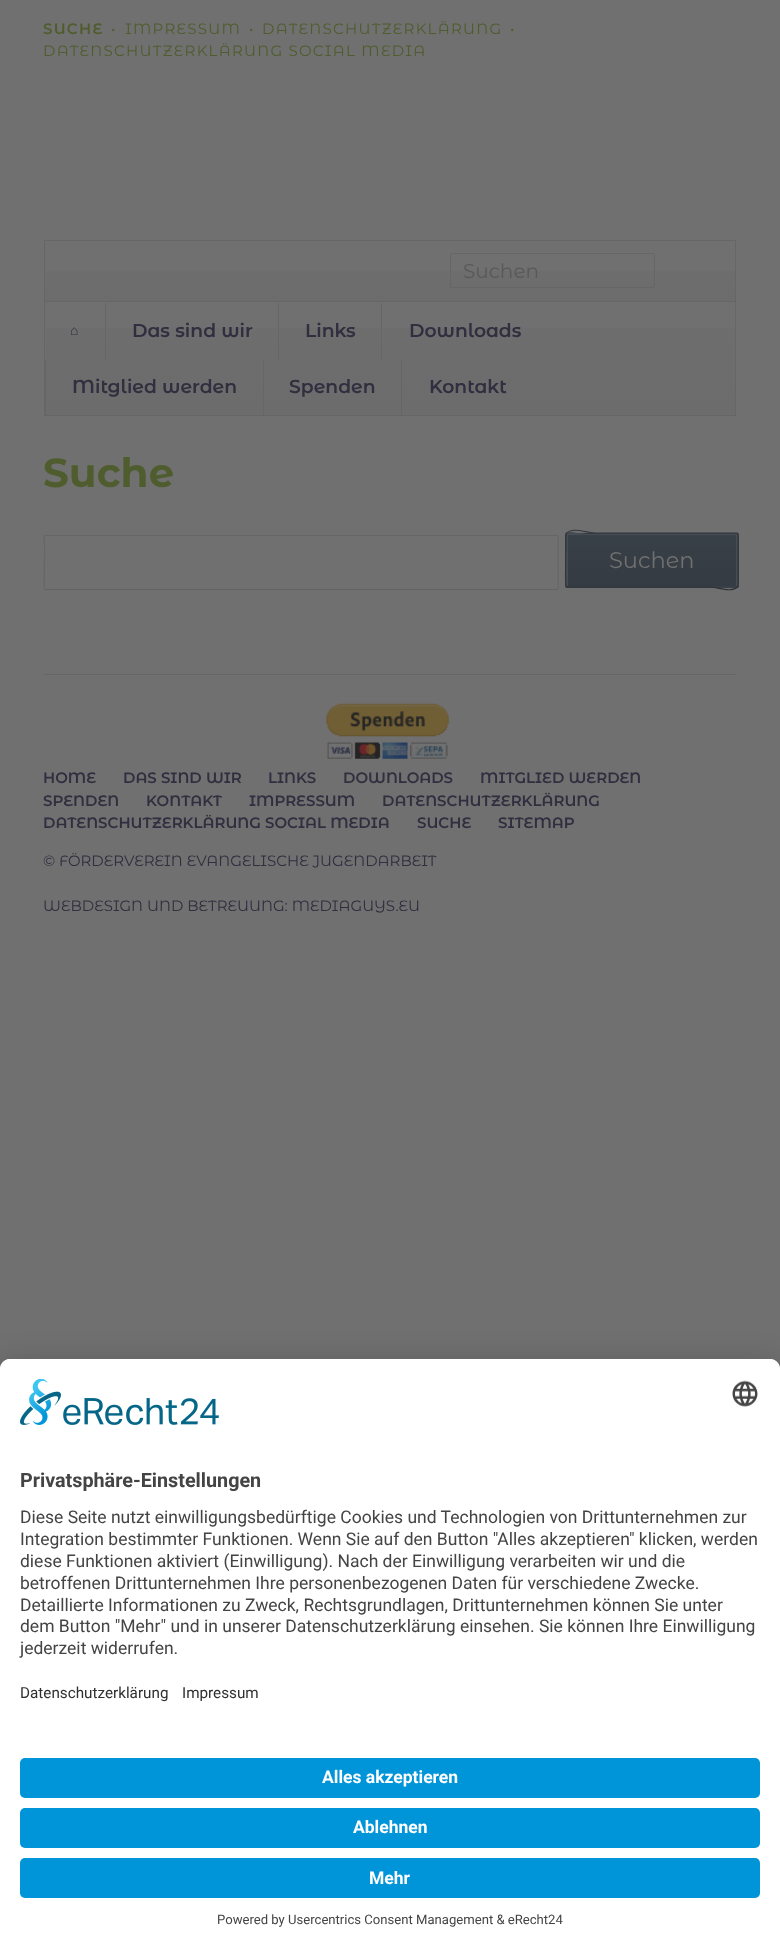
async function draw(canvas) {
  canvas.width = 780;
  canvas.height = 1947;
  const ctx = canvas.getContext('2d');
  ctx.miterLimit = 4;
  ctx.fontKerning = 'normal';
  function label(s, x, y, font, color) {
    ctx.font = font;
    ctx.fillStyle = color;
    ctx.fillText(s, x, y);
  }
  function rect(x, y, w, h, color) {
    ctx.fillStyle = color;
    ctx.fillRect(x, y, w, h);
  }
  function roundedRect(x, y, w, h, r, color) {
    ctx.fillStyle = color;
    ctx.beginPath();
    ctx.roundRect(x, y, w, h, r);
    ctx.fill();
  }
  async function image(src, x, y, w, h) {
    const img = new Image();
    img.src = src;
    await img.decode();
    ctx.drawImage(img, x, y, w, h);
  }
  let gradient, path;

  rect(0, 0, 780, 1947, '#707070');
  ctx.letterSpacing = '1.25px';
  label('SUCHE', 43, 34, '600 15px Montserrat Alternates', '#4f5d2e');
  label('•', 111, 34, '15px Montserrat Alternates', '#4f5d2e');
  label('IMPRESSUM', 125, 34, '15px Montserrat Alternates', '#4f5d2e');
  label('•', 249, 34, '15px Montserrat Alternates', '#4f5d2e');
  label('DATENSCHUTZERKLÄRUNG', 262, 34, '15px Montserrat Alternates', '#4f5d2e');
  label('•', 510, 34, '15px Montserrat Alternates', '#4f5d2e');
  label('DATENSCHUTZERKLÄRUNG SOCIAL MEDIA', 43, 56, '15px Montserrat Alternates', '#4f5d2e');
  gradient = ctx.createLinearGradient(390, 241, 390, 415);
  gradient.addColorStop(0, '#6f6f6f');
  gradient.addColorStop(1, '#6c6c6c');
  ctx.fillStyle = gradient;
  ctx.fillRect(46, 328, 689, 87);
  ctx.strokeStyle = '#666';
  ctx.strokeRect(44.5, 240.5, 691, 175);
  gradient = ctx.createLinearGradient(390, 241, 390, 301);
  gradient.addColorStop(0, '#6f6f6f');
  gradient.addColorStop(1, '#6c6c6c');
  ctx.fillStyle = gradient;
  ctx.fillRect(45, 271, 690, 30);
  rect(45, 301, 690, 1, '#666');
  ctx.beginPath();
  ctx.roundRect(450.5, 253.5, 204, 34, 1.5);
  ctx.stroke();
  ctx.letterSpacing = '0px';
  label('Suchen', 463, 278, '20px Montserrat Alternates', '#595959');
  label('⌂', 70, 335, '14px Liberation Serif', '#302e3f');
  rect(105, 303, 1, 56, '#666');
  label('Das sind wir', 132, 337, '600 18.75px Montserrat Alternates', '#302e3f');
  rect(278, 303, 1, 56, '#666');
  label('Links', 305, 337, '600 18.75px Montserrat Alternates', '#302e3f');
  rect(381, 303, 1, 56, '#666');
  label('Downloads', 409, 337, '600 18.75px Montserrat Alternates', '#302e3f');
  rect(45, 359, 1, 56, '#666');
  label('Mitglied werden', 72, 393, '600 18.75px Montserrat Alternates', '#302e3f');
  rect(263, 359, 1, 56, '#666');
  label('Spenden', 289, 393, '600 18.75px Montserrat Alternates', '#302e3f');
  rect(401, 359, 1, 56, '#666');
  label('Kontakt', 429, 393, '600 18.75px Montserrat Alternates', '#302e3f');
  label('Suche', 43, 487, 'bold 40.5px Montserrat Alternates', '#4f5d2e');
  path = new Path2D('M558 589L557 589.5H45.5L44.5 589');
  ctx.strokeStyle = '#636363';
  ctx.lineWidth = 1.2;
  ctx.stroke(path);
  path = new Path2D('M44.5 589C44 588 44.5 557.5 44.5 554V545.5C44.5 543.5 43 535.5 45.5 535.5H557C559.5 535.5 558 543.5 558 545.5V554C558 557.5 558.5 588 558 589');
  ctx.strokeStyle = '#666';
  ctx.stroke(path);
  ctx.save();
  ctx.beginPath();
  ctx.roundRect(565, 533, 174, 55, 2);
  ctx.clip();
  gradient = ctx.createLinearGradient(652, 481, 652, 534);
  gradient.addColorStop(0, '#384048');
  gradient.addColorStop(1, '#353b42');
  ctx.fillStyle = gradient;
  ctx.fillRect(565, 533, 174, 1);
  ctx.restore();
  gradient = ctx.createLinearGradient(652, 534, 652, 586);
  gradient.addColorStop(0, '#384048');
  gradient.addColorStop(1, '#353b42');
  ctx.fillStyle = gradient;
  ctx.fillRect(565, 534, 174, 52);
  gradient = ctx.createLinearGradient(652, 586, 652, 639);
  gradient.addColorStop(0, '#384048');
  gradient.addColorStop(1, '#353b42');
  ctx.fillStyle = gradient;
  ctx.beginPath();
  ctx.roundRect(565, 586, 174, 2, [0, 0, 2, 2]);
  ctx.fill();
  ctx.fillStyle = '#474d52';
  path = new Path2D('M736 586C741 586 738 584 738 577V543C738 536 741 534 736 534Z');
  ctx.fill(path);
  path = new Path2D('M568 535H738V534H595C565 534 566 525 566 543V577C566 584 563 586 568 586Z');
  ctx.fill(path);
  path = new Path2D('M566 533.5C573 526.5 585.5 533 595 533H737L738 533.5');
  ctx.strokeStyle = '#333a40';
  ctx.stroke(path);
  path = new Path2D('M738 533.5V543V586.5');
  ctx.strokeStyle = '#31363b';
  ctx.stroke(path);
  path = new Path2D('M738 586.5C731 593.5 718.5 587 708.5 587H567L566 586.5');
  ctx.strokeStyle = '#2e3236';
  ctx.stroke(path);
  path = new Path2D('M566 586.5L565.5 577L566 533.5');
  ctx.strokeStyle = '#31363b';
  ctx.stroke(path);
  label('Suchen', 609, 568, '22.5px Montserrat Alternates', '#707070');
  rect(44, 674, 692, 1, '#666');
  await image('assets/img1.png', 326, 703, 123, 56);
  label('HOME', 43, 783, '600 15px Montserrat Alternates', '#302e3f');
  label('DAS SIND WIR', 123, 783, '600 15px Montserrat Alternates', '#302e3f');
  label('LINKS', 268, 783, '600 15px Montserrat Alternates', '#302e3f');
  label('DOWNLOADS', 343, 783, '600 15px Montserrat Alternates', '#302e3f');
  label('MITGLIED WERDEN', 480, 783, '600 15px Montserrat Alternates', '#302e3f');
  label('SPENDEN', 43, 806, '600 15px Montserrat Alternates', '#302e3f');
  label('KONTAKT', 146, 806, '600 15px Montserrat Alternates', '#302e3f');
  label('IMPRESSUM', 249, 806, '600 15px Montserrat Alternates', '#302e3f');
  label('DATENSCHUTZERKLÄRUNG', 382, 806, '600 15px Montserrat Alternates', '#302e3f');
  label('DATENSCHUTZERKLÄRUNG SOCIAL MEDIA', 43, 828, '600 15px Montserrat Alternates', '#302e3f');
  label('SUCHE', 417, 828, '600 15px Montserrat Alternates', '#302e3f');
  label('SITEMAP', 498, 828, '600 15px Montserrat Alternates', '#302e3f');
  label('© FÖRDERVEREIN EVANGELISCHE JUGENDARBEIT', 43, 866, '15px Montserrat Alternates', '#302e3f');
  label('WEBDESIGN UND BETREUUNG: MEDIAGUYS.EU', 43, 911, '15px Montserrat Alternates', '#302e3f');
  ctx.fillStyle = '#00000038';
  ctx.filter = 'blur(16px)';
  ctx.beginPath();
  ctx.roundRect(0, 1365, 780, 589, 10);
  ctx.fill();
  ctx.filter = 'none';
  ctx.fillStyle = '#fff';
  path = new Path2D('M10 1359H770C775.5 1359 780 1363.5 780 1369V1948H0V1369C0 1363.5 4.5 1359 10 1359Z');
  ctx.fill(path);
  ctx.beginPath();
  ctx.roundRect(0, 1359, 780, 384, [10, 10, 0, 0]);
  ctx.fill();
  await image('assets/img2.png', 20, 1379, 199, 46);
  await image('assets/img3.png', 732, 1380, 26, 27);
  label('Privatsphäre-Einstellungen', 20, 1487, 'bold 19.75px Roboto', '#444');
  label('Diese Seite nutzt einwilligungsbedürftige Cookies und Technologien von Drittunternehmen zur', 20, 1523, '17.5px Roboto', '#444');
  label('Integration bestimmter Funktionen. Wenn Sie auf den Button "Alles akzeptieren" klicken, werden', 20, 1545, '17.5px Roboto', '#444');
  label('diese Funktionen aktiviert (Einwilligung). Nach der Einwilligung verarbeiten wir und die', 20, 1567, '17.5px Roboto', '#444');
  label('betroffenen Drittunternehmen Ihre personenbezogenen Daten für verschiedene Zwecke.', 20, 1589, '17.5px Roboto', '#444');
  label('Detaillierte Informationen zu Zweck, Rechtsgrundlagen, Drittunternehmen können Sie unter', 20, 1611, '17.5px Roboto', '#444');
  label('dem Button "Mehr" und in unserer Datenschutzerklärung einsehen. Sie können Ihre Einwilligung', 20, 1632, '17.5px Roboto', '#444');
  label('jederzeit widerrufen.', 20, 1654, '17.5px Roboto', '#444');
  label('Datenschutzerklärung', 20, 1698, '15.25px Roboto', '#303030');
  label('Impressum', 182, 1698, '15.25px Roboto', '#303030');
  roundedRect(20, 1758, 740, 40, 5, '#0094d8');
  label('Alles akzeptieren', 322, 1783, 'bold 17.5px Roboto', '#fff');
  roundedRect(20, 1808, 740, 40, 5, '#0094d8');
  label('Ablehnen', 353, 1833, 'bold 17.5px Roboto', '#fff');
  roundedRect(20, 1858, 740, 40, 5, '#0094d8');
  label('Mehr', 369, 1884, 'bold 17.5px Roboto', '#fff');
  label('Powered by Usercentrics Consent Management & eRecht24', 217, 1924, '13.1px Roboto', '#444');
}

draw(document.querySelector('canvas'));
